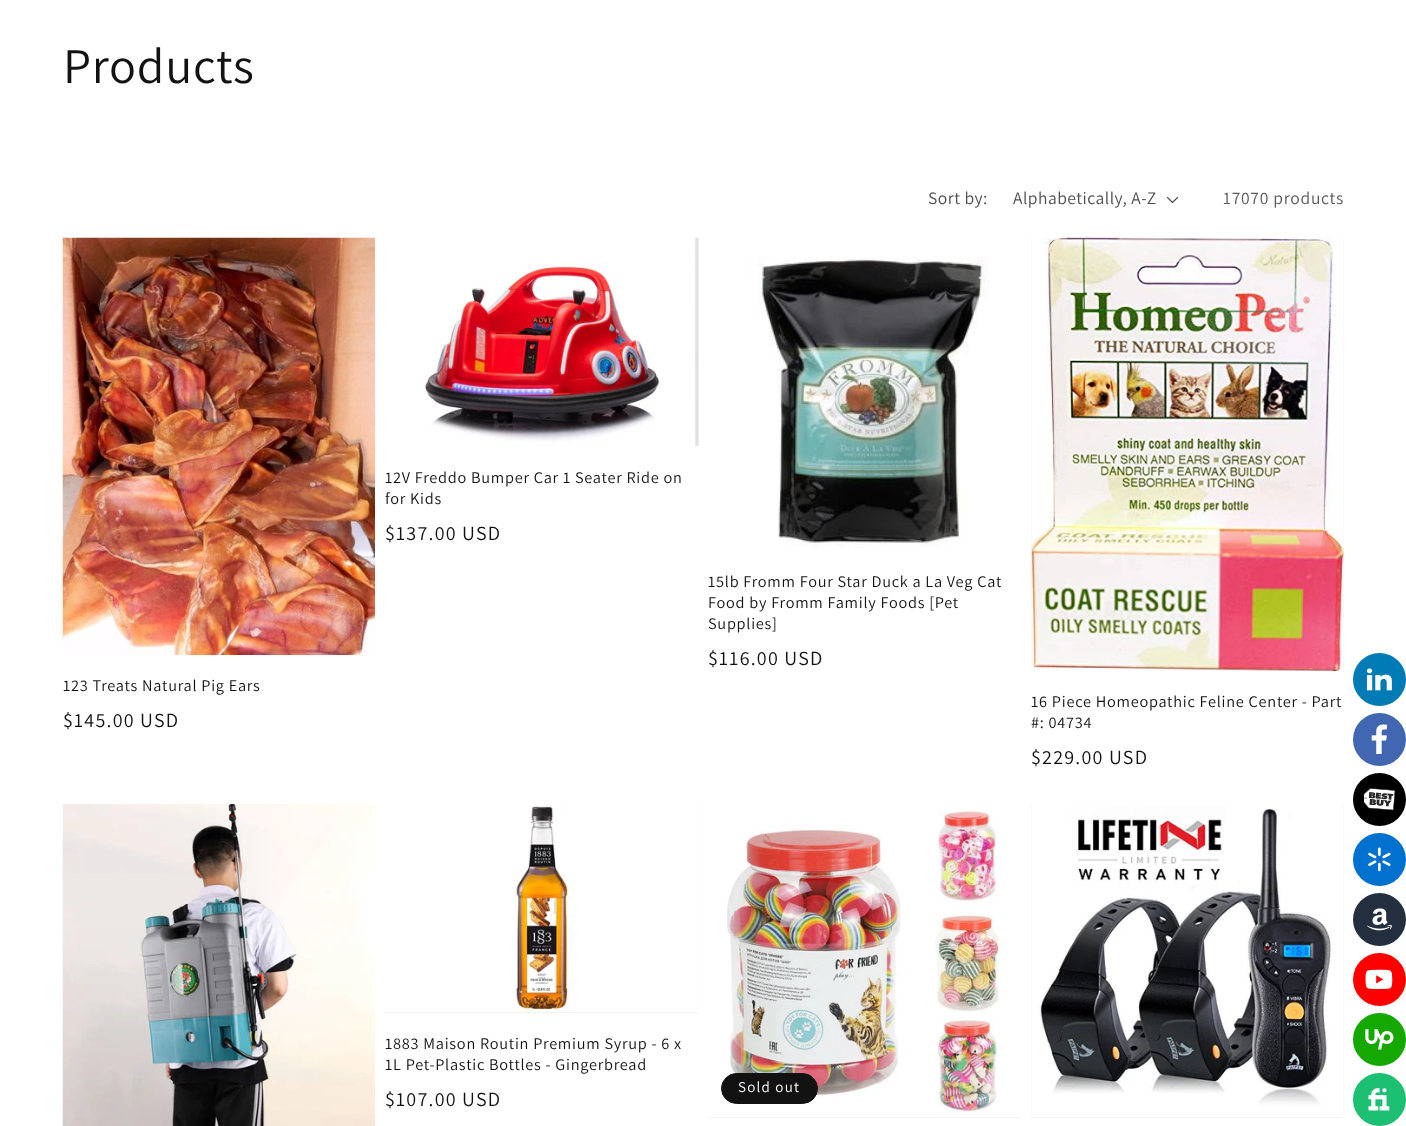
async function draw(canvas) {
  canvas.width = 1406;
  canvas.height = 1126;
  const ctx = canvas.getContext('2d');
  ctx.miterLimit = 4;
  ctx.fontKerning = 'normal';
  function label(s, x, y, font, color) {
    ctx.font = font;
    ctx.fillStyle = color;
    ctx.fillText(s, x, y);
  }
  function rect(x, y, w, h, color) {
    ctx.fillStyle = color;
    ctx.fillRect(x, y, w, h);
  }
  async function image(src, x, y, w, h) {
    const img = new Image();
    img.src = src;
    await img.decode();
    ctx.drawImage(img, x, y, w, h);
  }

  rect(0, 0, 1406, 1126, '#fff');
  ctx.letterSpacing = '0.75px';
  label('Products', 63, 83, '50px Assistant', '#121212');
  ctx.letterSpacing = '0.5px';
  label('Sort by:', 928, 204, '17.5px Assistant', '#4d4d4d');
  label('Alphabetically, A-Z', 1013, 204, '17.5px Assistant', '#4d4d4d');
  await image('assets/img1.png', 1166, 196, 13, 8);
  ctx.letterSpacing = '0.75px';
  label('17070 products', 1223, 204, '17.5px Assistant', '#595959');
  rect(698, 238, 1, 208, '#f3f3f3');
  await image('assets/img2.png', 385, 237, 314, 209);
  label('12V Freddo Bumper Car 1 Seater Ride on', 385, 483, '16.25px Assistant', '#121212');
  label('for Kids', 385, 504, '16.25px Assistant', '#121212');
  ctx.letterSpacing = '1.25px';
  label('$137.00 USD', 385, 540, '20px Assistant', '#121212');
  await image('assets/img3.png', 709, 238, 312, 312);
  ctx.letterSpacing = '0.75px';
  label('15lb Fromm Four Star Duck a La Veg Cat', 708, 587, '16.25px Assistant', '#121212');
  label('Food by Fromm Family Foods [Pet', 708, 608, '16.25px Assistant', '#121212');
  label('Supplies]', 708, 629, '16.25px Assistant', '#121212');
  ctx.letterSpacing = '1.25px';
  label('$116.00 USD', 708, 665, '20px Assistant', '#121212');
  await image('assets/img4.png', 62, 237, 313, 418);
  ctx.letterSpacing = '0.75px';
  label('123 Treats Natural Pig Ears', 63, 691, '16.25px Assistant', '#121212');
  ctx.letterSpacing = '1.25px';
  label('$145.00 USD', 63, 727, '20px Assistant', '#121212');
  rect(1031, 238, 313, 433, '#f3f3f3');
  await image('assets/img5.png', 1031, 237, 313, 435);
  ctx.letterSpacing = '0.75px';
  label('16 Piece Homeopathic Feline Center - Part', 1031, 707, '16.25px Assistant', '#121212');
  label('#: 04734', 1031, 728, '16.25px Assistant', '#121212');
  ctx.letterSpacing = '1.25px';
  label('$229.00 USD', 1031, 764, '20px Assistant', '#121212');
  await image('assets/img6.png', 62, 803, 313, 323);
  rect(385, 804, 314, 209, '#f3f3f3');
  await image('assets/img7.png', 385, 804, 314, 208);
  ctx.letterSpacing = '0.75px';
  label('1883 Maison Routin Premium Syrup - 6 x', 385, 1049, '16.25px Assistant', '#121212');
  label('1L Pet-Plastic Bottles - Gingerbread', 385, 1070, '16.25px Assistant', '#121212');
  ctx.letterSpacing = '1.25px';
  label('$107.00 USD', 385, 1106, '20px Assistant', '#121212');
  rect(709, 1117, 312, 1, '#f3f3f3');
  await image('assets/img8.png', 709, 804, 312, 313);
  ctx.fillStyle = '#121212';
  ctx.beginPath();
  ctx.roundRect(721.5, 1073.5, 96, 30, 15);
  ctx.fill();
  ctx.strokeStyle = '#121212';
  ctx.stroke();
  label('Sold out', 738, 1092, '15px Assistant', '#fff');
  rect(1031, 804, 313, 314, '#f3f3f3');
  await image('assets/img9.png', 1031, 804, 313, 313);
  ctx.fillStyle = '#007bb5';
  ctx.beginPath();
  ctx.arc(1379.5, 679.5, 26.5, 0, 2 * Math.PI);
  ctx.fill();
  await image('assets/img10.png', 1366, 668, 26, 23);
  ctx.fillStyle = '#4267b2';
  ctx.beginPath();
  ctx.arc(1379.5, 739.5, 26.5, 0, 2 * Math.PI);
  ctx.fill();
  await image('assets/img11.png', 1371, 724, 16, 30);
  ctx.fillStyle = '#000';
  ctx.beginPath();
  ctx.arc(1379.5, 799.5, 26.5, 0, 2 * Math.PI);
  ctx.fill();
  await image('assets/img12.png', 1364, 788, 31, 23);
  ctx.fillStyle = '#0071ce';
  ctx.beginPath();
  ctx.arc(1379.5, 859.5, 26.5, 0, 2 * Math.PI);
  ctx.fill();
  await image('assets/img13.png', 1368, 847, 23, 25);
  ctx.fillStyle = '#232f3e';
  ctx.beginPath();
  ctx.arc(1379.5, 919.5, 26.5, 0, 2 * Math.PI);
  ctx.fill();
  await image('assets/img14.png', 1366, 908, 26, 23);
  ctx.fillStyle = '#f00';
  ctx.beginPath();
  ctx.arc(1379.5, 979.5, 26.5, 0, 2 * Math.PI);
  ctx.fill();
  await image('assets/img15.png', 1365, 969, 28, 21);
  ctx.fillStyle = '#14a800';
  ctx.beginPath();
  ctx.arc(1379.5, 1039.5, 26.5, 0, 2 * Math.PI);
  ctx.fill();
  await image('assets/img16.png', 1365, 1029, 29, 21);
  ctx.fillStyle = '#1dbf73';
  ctx.beginPath();
  ctx.arc(1379.5, 1099.5, 26.5, 0, 2 * Math.PI);
  ctx.fill();
  await image('assets/img17.png', 1368, 1088, 22, 23);
}

draw(document.querySelector('canvas'));
